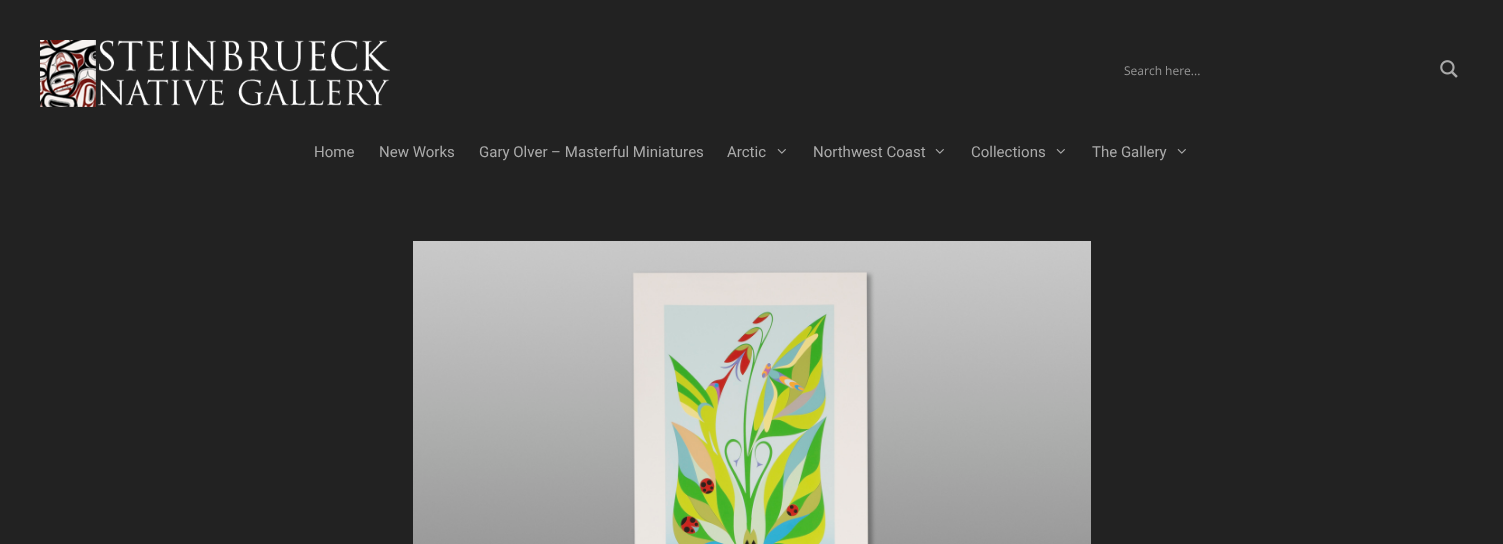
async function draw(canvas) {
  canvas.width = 1503;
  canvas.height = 544;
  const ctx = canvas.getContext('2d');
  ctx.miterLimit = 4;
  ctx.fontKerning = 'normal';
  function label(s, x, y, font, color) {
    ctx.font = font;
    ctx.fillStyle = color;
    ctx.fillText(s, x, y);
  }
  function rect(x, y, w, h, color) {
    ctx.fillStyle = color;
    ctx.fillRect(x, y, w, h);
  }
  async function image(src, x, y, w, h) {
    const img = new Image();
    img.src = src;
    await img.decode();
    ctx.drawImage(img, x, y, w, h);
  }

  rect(0, 0, 1503, 544, '#222');
  await image('assets/img1.png', 40, 40, 350, 67);
  label('Search here...', 1124, 75, '12px Open Sans', '#969696');
  await image('assets/img2.png', 1440, 60, 18, 18);
  label('Home', 314, 157, '15px Heebo', '#aaa');
  label('New Works', 379, 157, '15px Heebo', '#aaa');
  label('Gary Olver – Masterful Miniatures', 479, 157, '15px Heebo', '#aaa');
  label('Arctic', 727, 157, '15px Heebo', '#aaa');
  await image('assets/img3.png', 777, 149, 9, 5);
  label('Northwest Coast', 813, 157, '15px Heebo', '#aaa');
  await image('assets/img3.png', 935, 149, 9, 5);
  label('Collections', 971, 157, '15px Heebo', '#aaa');
  await image('assets/img3.png', 1056, 149, 9, 5);
  label('The Gallery', 1092, 157, '15px Heebo', '#aaa');
  await image('assets/img3.png', 1177, 149, 9, 5);
  await image('assets/img4.png', 413, 241, 678, 303);
}

draw(document.querySelector('canvas'));
